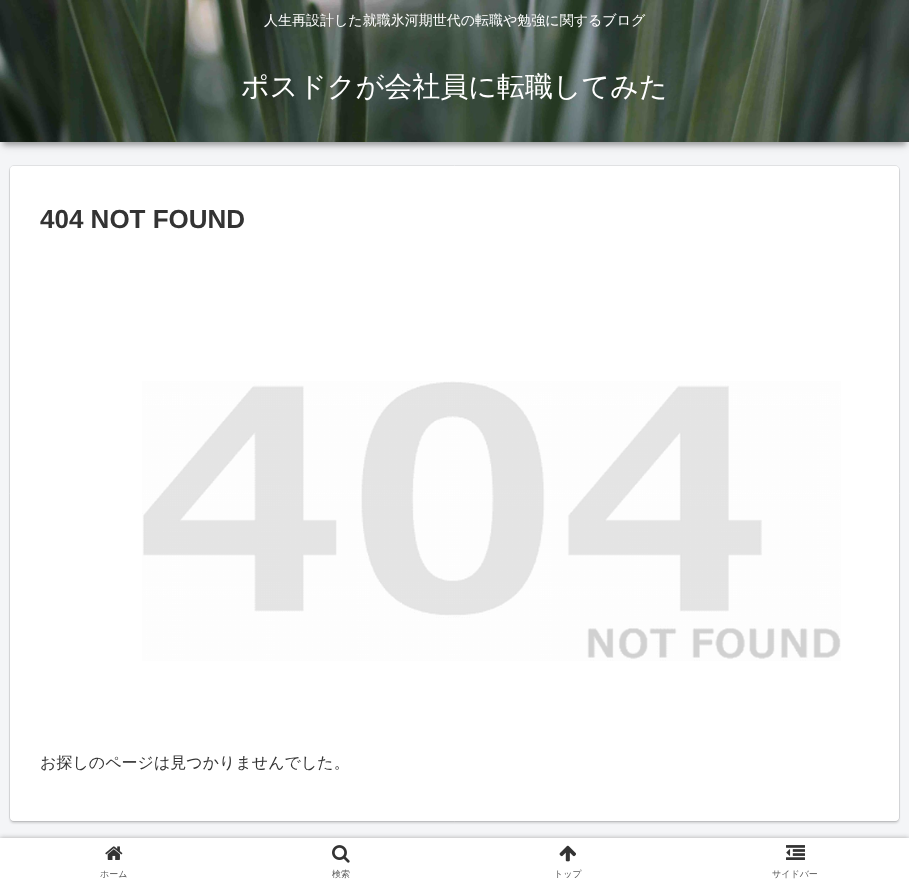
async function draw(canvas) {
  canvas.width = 909;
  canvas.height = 888;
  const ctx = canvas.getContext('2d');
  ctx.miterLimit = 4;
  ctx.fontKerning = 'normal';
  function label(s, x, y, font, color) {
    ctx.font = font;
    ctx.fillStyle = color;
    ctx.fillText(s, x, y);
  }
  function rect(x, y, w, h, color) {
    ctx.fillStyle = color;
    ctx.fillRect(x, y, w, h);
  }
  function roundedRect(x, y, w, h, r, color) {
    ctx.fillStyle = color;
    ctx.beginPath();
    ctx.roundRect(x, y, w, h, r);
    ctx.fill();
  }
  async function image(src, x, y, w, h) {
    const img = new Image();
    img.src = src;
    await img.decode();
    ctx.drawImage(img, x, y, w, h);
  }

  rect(0, 0, 909, 888, '#f4f5f7');
  ctx.fillStyle = '#0000002e';
  ctx.filter = 'blur(5px)';
  ctx.beginPath();
  ctx.rect(3, 9, 903, 136);
  ctx.fill();
  ctx.filter = 'none';
  ctx.fillStyle = '#0000003d';
  ctx.filter = 'blur(2.5px)';
  ctx.beginPath();
  ctx.rect(3, 9, 903, 136);
  ctx.fill();
  ctx.filter = 'none';
  await image('assets/img1.png', 0, 0, 909, 142);
  label('人生再設計した就職氷河期世代の転職や勉強に関するブログ', 264, 25, '500 14px WenQuanYi Zen Hei', '#fff');
  label('ポスドクが会社員に転職してみた', 241, 96, '500 28px WenQuanYi Zen Hei', '#fff');
  ctx.beginPath();
  ctx.roundRect(9.5, 165.5, 890, 656, 4.5);
  ctx.strokeStyle = '#e0e1e3';
  ctx.stroke();
  ctx.fillStyle = '#00000029';
  ctx.filter = 'blur(1px)';
  ctx.beginPath();
  ctx.roundRect(10, 168, 889, 655, 4);
  ctx.fill();
  ctx.filter = 'none';
  roundedRect(10, 166, 889, 655, 4, '#fff');
  label('404 NOT FOUND', 40, 228, 'bold 26px Liberation Sans', '#333');
  await image('assets/img2.png', 142, 381, 699, 280);
  label('お探しのページは見つかりませんでした。', 40, 768, '500 16px WenQuanYi Zen Hei', '#333');
  ctx.fillStyle = '#a9a9a9';
  ctx.filter = 'blur(2.5px)';
  ctx.beginPath();
  ctx.rect(0, 838, 909, 50);
  ctx.fill();
  ctx.filter = 'none';
  rect(0, 838, 909, 50, '#fff');
  await image('assets/img3.png', 105, 846, 18, 14);
  label('ホーム', 100, 877, '500 9px WenQuanYi Zen Hei', '#5c5c5c');
  await image('assets/img4.png', 332, 845, 18, 18);
  label('検索', 332, 877, '500 9px WenQuanYi Zen Hei', '#5c5c5c');
  await image('assets/img5.png', 559, 845, 17, 17);
  label('トップ', 554, 877, '500 9px WenQuanYi Zen Hei', '#5c5c5c');
  await image('assets/img6.png', 786, 845, 19, 15);
  label('サイドバー', 772, 877, '500 9px WenQuanYi Zen Hei', '#5c5c5c');
}

draw(document.querySelector('canvas'));
